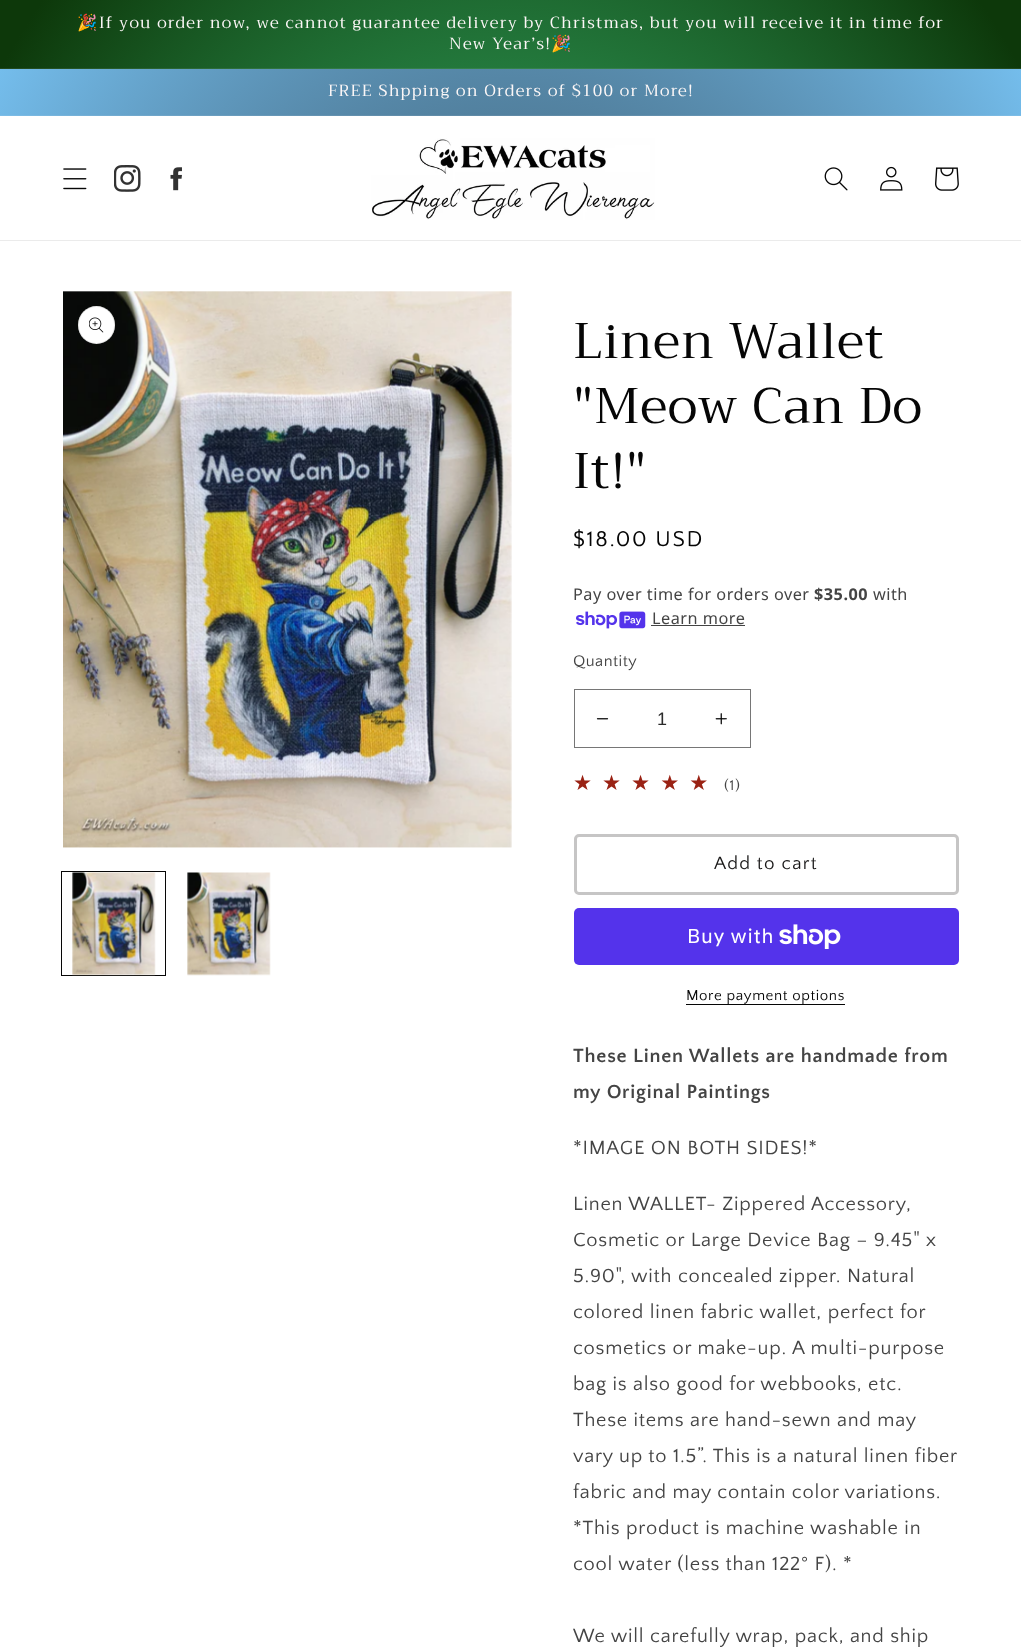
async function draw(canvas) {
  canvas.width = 1021;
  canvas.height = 1647;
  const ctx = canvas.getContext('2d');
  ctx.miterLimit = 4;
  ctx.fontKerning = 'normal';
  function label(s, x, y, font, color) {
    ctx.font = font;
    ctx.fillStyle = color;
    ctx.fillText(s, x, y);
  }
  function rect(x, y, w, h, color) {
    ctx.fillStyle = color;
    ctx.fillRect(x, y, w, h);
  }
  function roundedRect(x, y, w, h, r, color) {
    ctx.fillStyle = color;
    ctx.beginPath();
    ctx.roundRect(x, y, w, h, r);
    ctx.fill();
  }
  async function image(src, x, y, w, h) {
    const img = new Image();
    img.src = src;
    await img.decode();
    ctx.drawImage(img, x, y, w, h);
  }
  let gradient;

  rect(0, 0, 1021, 1647, '#fff');
  gradient = ctx.createRadialGradient(511, 510.67, 0, 511, 510.67, 722);
  gradient.addColorStop(0, '#51fea4');
  gradient.addColorStop(0.96, '#0d380a');
  ctx.fillStyle = gradient;
  ctx.beginPath();
  ctx.rect(0, 0, 1021, 68);
  ctx.save();
  ctx.clip();
  ctx.scale(1, 1165 / 722);
  ctx.fillRect(0, 0, 1021, 1021);
  ctx.restore();
  gradient = ctx.createRadialGradient(511, 510.67, 0, 511, 510.67, 722);
  gradient.addColorStop(0, '#5ffdab');
  gradient.addColorStop(0.96, '#20471d');
  ctx.fillStyle = gradient;
  ctx.beginPath();
  ctx.rect(0, 68, 1021, 1);
  ctx.save();
  ctx.clip();
  ctx.scale(1, 1165 / 722);
  ctx.fillRect(0, 0, 1021, 1021);
  ctx.restore();
  ctx.letterSpacing = '1.25px';
  label('🎉', 77, 28, '16.25px Noto Color Emoji', '#fcf7f7');
  label('If you order now, we cannot guarantee delivery by Christmas, but you will receive it in time for', 99, 28, '16.25px Trirong', '#fcf7f7');
  label('New Year’s!', 449, 49, '16.25px Trirong', '#fcf7f7');
  label('🎉', 551, 49, '16.25px Noto Color Emoji', '#fcf7f7');
  gradient = ctx.createRadialGradient(511, 510.67, 0, 511, 510.67, 722);
  gradient.addColorStop(0, '#171819');
  gradient.addColorStop(1, '#78c4f5');
  ctx.fillStyle = gradient;
  ctx.beginPath();
  ctx.rect(0, 69, 1021, 46);
  ctx.save();
  ctx.clip();
  ctx.scale(1, 1165 / 722);
  ctx.fillRect(0, 0, 1021, 1021);
  ctx.restore();
  gradient = ctx.createRadialGradient(511, 510.67, 0, 511, 510.67, 722);
  gradient.addColorStop(0, '#292a2b');
  gradient.addColorStop(1, '#83c8f5');
  ctx.fillStyle = gradient;
  ctx.beginPath();
  ctx.rect(0, 115, 1021, 1);
  ctx.save();
  ctx.clip();
  ctx.scale(1, 1165 / 722);
  ctx.fillRect(0, 0, 1021, 1021);
  ctx.restore();
  label('FREE Shpping on Orders of $100 or More!', 328, 96, '16.25px Trirong', '#fcf7f7');
  rect(0, 240, 1021, 1, '#ebebeb');
  await image('assets/img1.png', 63, 168, 24, 22);
  await image('assets/img2.png', 114, 165, 27, 27);
  await image('assets/img3.png', 170, 167, 12, 24);
  await image('assets/img4.png', 371, 138, 284, 82);
  await image('assets/img5.png', 824, 167, 24, 24);
  await image('assets/img6.png', 880, 166, 23, 25);
  await image('assets/img7.png', 935, 167, 24, 24);
  await image('assets/img8.png', 63, 291, 449, 557);
  roundedRect(78, 306, 37, 38, 18.5, '#fff');
  ctx.beginPath();
  ctx.roundRect(78.5, 306.5, 36, 37, 18);
  ctx.strokeStyle = '#0606061a';
  ctx.stroke();
  await image('assets/img9.png', 89, 317, 15, 16);
  ctx.strokeStyle = '#060606';
  ctx.strokeRect(61.5, 871.5, 104, 104);
  await image('assets/img10.png', 72, 872, 84, 104);
  await image('assets/img11.png', 187, 872, 84, 104);
  ctx.letterSpacing = '0.75px';
  label('Linen Wallet', 573, 358, '50px Trirong', '#060606');
  label('"Meow Can Do', 573, 423, '50px Trirong', '#060606');
  label('It!"', 573, 488, '50px Trirong', '#060606');
  ctx.letterSpacing = '1.6px';
  label('$18.00 USD', 573, 546, '22.5px Quattrocento Sans', '#060606');
  ctx.letterSpacing = '0.5px';
  label('Pay over time for orders over', 573, 600, '16.25px Noto Sans', '#444');
  label('$35.00', 814, 600, 'bold 16.25px Noto Sans', '#444');
  label('with', 873, 600, '16.25px Noto Sans', '#444');
  await image('assets/img12.png', 576, 611, 70, 18);
  label('Learn more', 652, 624, '16.25px Noto Sans', '#444');
  rect(651, 625, 94, 1, '#444');
  label('Quantity', 573, 666, '16.25px Quattrocento Sans', '#444');
  await image('assets/img13.png', 596, 718, 13, 2);
  await image('assets/img14.png', 715, 713, 12, 12);
  ctx.strokeStyle = '#767676';
  ctx.strokeRect(574.5, 689.5, 176, 58);
  ctx.letterSpacing = '0px';
  label('1', 657, 725, '18px Liberation Sans', '#2b2b2b');
  ctx.letterSpacing = '10px';
  ctx.font = '21.25px DejaVu Sans';
  gradient = ctx.createLinearGradient(573, 783, 718, 783);
  gradient.addColorStop(1, '#9a2214');
  gradient.addColorStop(1, '#dadada');
  ctx.fillStyle = gradient;
  ctx.fillText('★★★★★', 573, 790);
  ctx.letterSpacing = '1px';
  label('(1)', 724, 790, '15px Quattrocento Sans', '#444');
  ctx.beginPath();
  ctx.roundRect(575.5, 835.5, 382, 58, 3.5);
  ctx.strokeStyle = '#c6c5c5';
  ctx.lineWidth = 3;
  ctx.stroke();
  ctx.letterSpacing = '1.25px';
  label('Add to cart', 714, 869, '18.75px Quattrocento Sans', '#191818');
  roundedRect(574, 908, 385, 57, 5, '#5433eb');
  ctx.letterSpacing = '0.75px';
  label('Buy with', 687, 943, '20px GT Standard', '#fff');
  await image('assets/img15.png', 779, 924, 62, 25);
  ctx.letterSpacing = '0.6px';
  label('More payment options', 686, 1000, '15px Quattrocento Sans', '#060606');
  rect(686, 1004, 159, 1, '#060606');
  ctx.letterSpacing = '0.75px';
  label('These Linen Wallets are handmade from', 573, 1062, 'bold 20px Quattrocento Sans', '#444');
  label('my Original Paintings', 573, 1098, 'bold 20px Quattrocento Sans', '#444');
  label('*IMAGE ON BOTH SIDES!*', 573, 1154, '20px Quattrocento Sans', '#444');
  label('Linen WALLET- Zippered Accessory,', 573, 1210, '20px Quattrocento Sans', '#444');
  label('Cosmetic or Large Device Bag – 9.45" x', 573, 1246, '20px Quattrocento Sans', '#444');
  label('5.90", with concealed zipper. Natural', 573, 1282, '20px Quattrocento Sans', '#444');
  label('colored linen fabric wallet, perfect for', 573, 1318, '20px Quattrocento Sans', '#444');
  label('cosmetics or make-up. A multi-purpose', 573, 1354, '20px Quattrocento Sans', '#444');
  label('bag is also good for webbooks, etc.', 573, 1390, '20px Quattrocento Sans', '#444');
  label('These items are hand-sewn and may', 573, 1426, '20px Quattrocento Sans', '#444');
  label('vary up to 1.5”. This is a natural linen fiber', 573, 1462, '20px Quattrocento Sans', '#444');
  label('fabric and may contain color variations.', 573, 1498, '20px Quattrocento Sans', '#444');
  label('*This product is machine washable in', 573, 1534, '20px Quattrocento Sans', '#444');
  label('cool water (less than 122° F). *', 573, 1570, '20px Quattrocento Sans', '#444');
  label('We will carefully wrap, pack, and ship', 573, 1642, '20px Quattrocento Sans', '#444');
}

draw(document.querySelector('canvas'));
